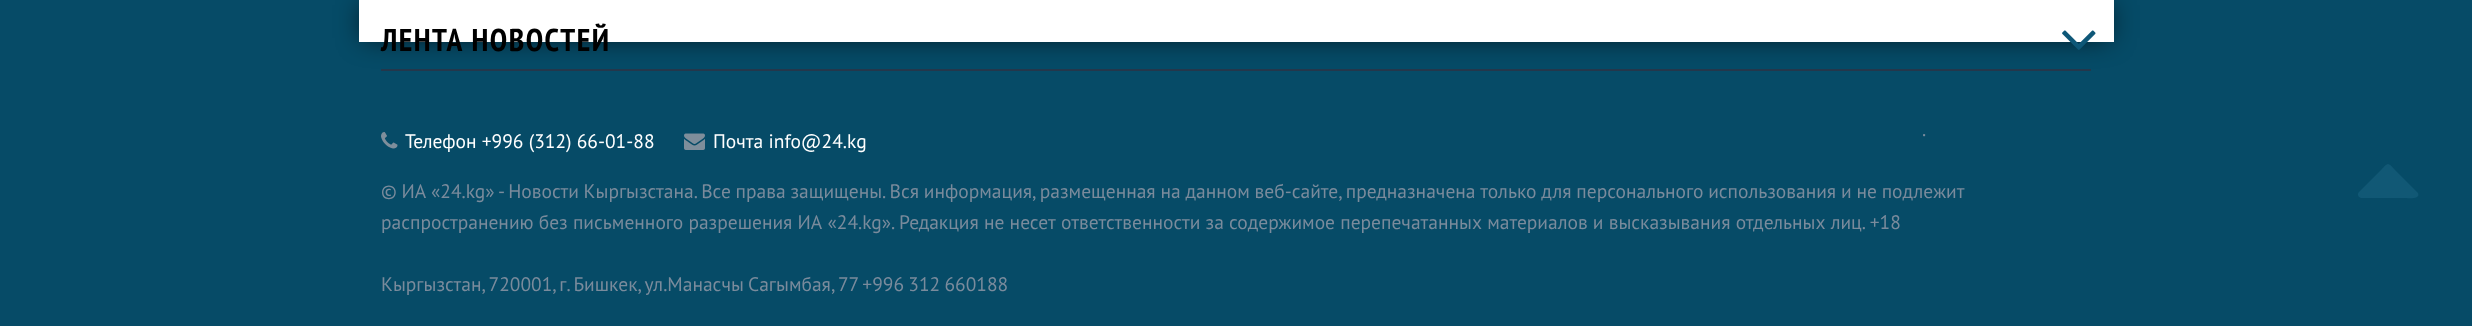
async function draw(canvas) {
  canvas.width = 2472;
  canvas.height = 326;
  const ctx = canvas.getContext('2d');
  ctx.miterLimit = 4;
  ctx.fontKerning = 'normal';
  function label(s, x, y, font, color) {
    ctx.font = font;
    ctx.fillStyle = color;
    ctx.fillText(s, x, y);
  }
  function rect(x, y, w, h, color) {
    ctx.fillStyle = color;
    ctx.fillRect(x, y, w, h);
  }
  async function image(src, x, y, w, h) {
    const img = new Image();
    img.src = src;
    await img.decode();
    ctx.drawImage(img, x, y, w, h);
  }
  let path;

  rect(0, 0, 2472, 326, '#064b67');
  rect(381, 69, 1710, 2, '#24374b');
  ctx.fillStyle = '#000000bf';
  ctx.filter = 'blur(13.5px)';
  ctx.beginPath();
  ctx.rect(363, 5, 1746, 33);
  ctx.fill();
  ctx.filter = 'none';
  rect(359, 0, 1755, 42, '#fff');
  ctx.letterSpacing = '1.5px';
  ctx.wordSpacing = '1px';
  label('ЛЕНТА НОВОСТЕЙ', 381, 51, 'bold 31.5px PT Sans Narrow', '#000');
  await image('assets/img1.png', 2062, 30, 34, 20);
  await image('assets/img2.png', 381, 132, 17, 17);
  ctx.letterSpacing = '0px';
  ctx.wordSpacing = '0px';
  label('Телефон +996 (312) 66-01-88', 405, 148, '19.5px PT Sans', '#fff');
  await image('assets/img3.png', 684, 133, 21, 17);
  label('Почта info@24.kg', 713, 148, '19.5px PT Sans', '#fff');
  label('.', 1922, 136, '19.5px PT Sans', '#7a8b9c');
  ctx.wordSpacing = '-0.4px';
  label('© ИА «24.kg» - Новости Кыргызстана. Все права защищены. Вся информация, размещенная на данном веб-сайте, предназначена только для персонального использования и не подлежит', 381, 198, '19.5px PT Sans', '#7a8b9c');
  ctx.wordSpacing = '0px';
  label('распространению без письменного разрешения ИА «24.kg». Редакция не несет ответственности за содержимое перепечатанных материалов и высказывания отдельных лиц. +18', 381, 229, '19.5px PT Sans', '#7a8b9c');
  ctx.wordSpacing = '-1px';
  label('Кыргызстан, 720001, г. Бишкек, ул.Манасчы Сагымбая, 77 +996 312 660188', 381, 291, '19.5px PT Sans', '#7a8b9c');
  ctx.fillStyle = '#115875';
  path = new Path2D('M2417 192L2418 193C2421 200 2407 198 2406 198H2361C2358 197 2357 194 2359 192L2381 170C2388 162 2388 162 2395 170Z');
  ctx.fill(path);
}

draw(document.querySelector('canvas'));
